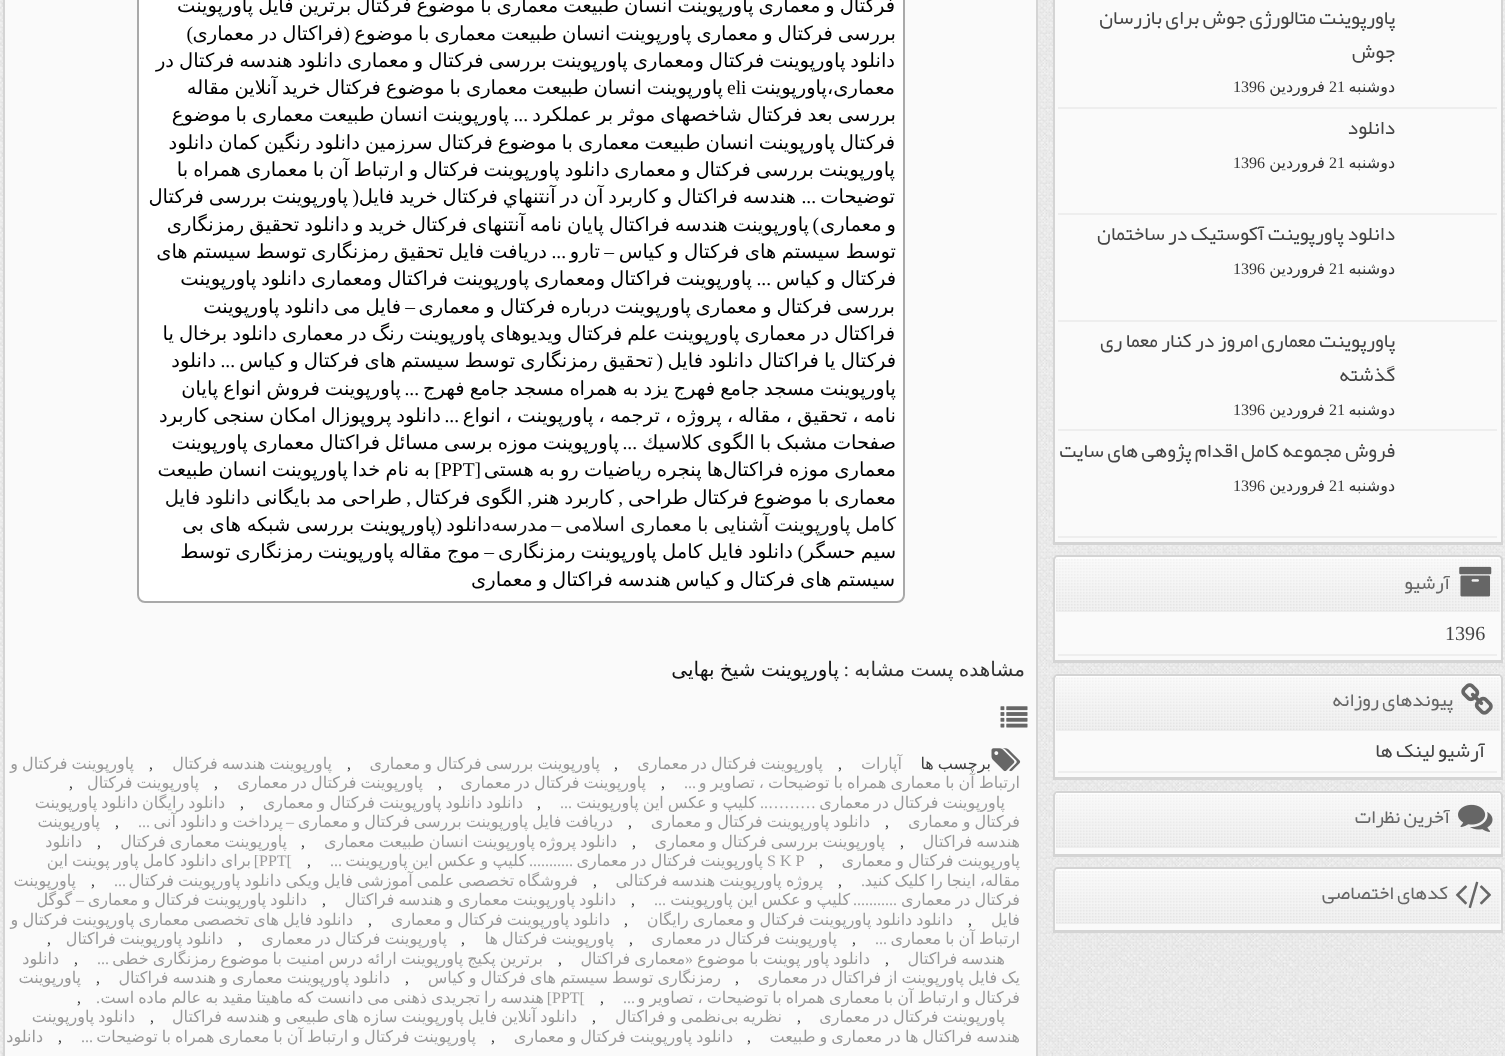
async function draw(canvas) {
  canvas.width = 1505;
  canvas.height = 1056;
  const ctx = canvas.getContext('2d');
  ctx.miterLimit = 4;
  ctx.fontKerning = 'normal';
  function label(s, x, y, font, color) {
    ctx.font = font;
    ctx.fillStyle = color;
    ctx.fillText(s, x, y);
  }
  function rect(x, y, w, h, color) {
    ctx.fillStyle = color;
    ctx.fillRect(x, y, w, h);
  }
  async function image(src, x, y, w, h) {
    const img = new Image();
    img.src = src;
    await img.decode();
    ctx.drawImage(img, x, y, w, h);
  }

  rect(0, 0, 1505, 1056, '#fff');
  await image('assets/img1.png', 0, 0, 1505, 1056);
  rect(1055, 0, 446, 542, '#fafafa');
  ctx.strokeStyle = '#d4d4d4';
  ctx.lineWidth = 2;
  ctx.strokeRect(1054, -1, 448, 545);
  rect(1053, 542, 450, 1, '#d4d4d4');
  rect(1058, 107, 439, 2, '#eee');
  ctx.direction = 'rtl';
  label('پاورپوینت متالورژی جوش برای بازرسان', 1395, 24, '20.1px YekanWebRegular', '#444');
  label('جوش', 1395, 58, '20.1px YekanWebRegular', '#444');
  label('دوشنبه', 1395, 92, '16px DejaVu Sans', '#333');
  ctx.direction = 'ltr';
  label('21', 1329, 92, '16px Liberation Serif', '#333');
  ctx.direction = 'rtl';
  label('فروردين', 1325, 92, '16px DejaVu Sans', '#333');
  ctx.direction = 'ltr';
  label('1396', 1233, 92, '16px Liberation Serif', '#333');
  rect(1058, 213, 439, 2, '#eee');
  ctx.direction = 'rtl';
  label('دانلود', 1395, 134, '20.1px YekanWebRegular', '#444');
  label('دوشنبه', 1395, 168, '16px DejaVu Sans', '#333');
  ctx.direction = 'ltr';
  label('21', 1329, 168, '16px Liberation Serif', '#333');
  ctx.direction = 'rtl';
  label('فروردين', 1325, 168, '16px DejaVu Sans', '#333');
  ctx.direction = 'ltr';
  label('1396', 1233, 168, '16px Liberation Serif', '#333');
  rect(1058, 320, 439, 2, '#eee');
  ctx.direction = 'rtl';
  label('دانلود پاورپوینت آکوستیک در ساختمان', 1395, 240, '20.1px YekanWebRegular', '#444');
  label('دوشنبه', 1395, 274, '16px DejaVu Sans', '#333');
  ctx.direction = 'ltr';
  label('21', 1329, 274, '16px Liberation Serif', '#333');
  ctx.direction = 'rtl';
  label('فروردين', 1325, 274, '16px DejaVu Sans', '#333');
  ctx.direction = 'ltr';
  label('1396', 1233, 274, '16px Liberation Serif', '#333');
  rect(1058, 429, 439, 2, '#eee');
  ctx.direction = 'rtl';
  label('پاورپوینت معماری امروز در کنار معما ری', 1395, 347, '20.1px YekanWebRegular', '#444');
  label('گذشته', 1395, 381, '20.1px YekanWebRegular', '#444');
  label('دوشنبه', 1395, 415, '16px DejaVu Sans', '#333');
  ctx.direction = 'ltr';
  label('21', 1329, 415, '16px Liberation Serif', '#333');
  ctx.direction = 'rtl';
  label('فروردين', 1325, 415, '16px DejaVu Sans', '#333');
  ctx.direction = 'ltr';
  label('1396', 1233, 415, '16px Liberation Serif', '#333');
  rect(1058, 536, 439, 2, '#eee');
  ctx.direction = 'rtl';
  label('فروش مجموعه کامل اقدام پژوهی های سایت', 1395, 457, '20.1px YekanWebRegular', '#444');
  label('دوشنبه', 1395, 491, '16px DejaVu Sans', '#333');
  ctx.direction = 'ltr';
  label('21', 1329, 491, '16px Liberation Serif', '#333');
  ctx.direction = 'rtl';
  label('فروردين', 1325, 491, '16px DejaVu Sans', '#333');
  ctx.direction = 'ltr';
  label('1396', 1233, 491, '16px Liberation Serif', '#333');
  ctx.fillStyle = '#fafafa';
  ctx.beginPath();
  ctx.roundRect(1055, 557, 447, 103, [3, 3, 0, 0]);
  ctx.fill();
  ctx.beginPath();
  ctx.roundRect(1054, 556, 448, 106, [4, 4, 0, 0]);
  ctx.stroke();
  rect(1053, 660, 450, 1, '#d4d4d4');
  rect(1056, 558, 444, 54, '#eee');
  await image('assets/img2.png', 1056, 557, 444, 54);
  await image('assets/img3.png', 1459, 566, 33, 31);
  ctx.direction = 'rtl';
  label('آرشیو', 1450, 589, '19.5px YekanWebRegular', '#666');
  rect(1058, 654, 439, 2, '#eee');
  ctx.direction = 'ltr';
  label('1396', 1445, 640, '20.1px Liberation Serif', '#444');
  ctx.fillStyle = '#fafafa';
  ctx.beginPath();
  ctx.roundRect(1055, 675, 447, 102, [3, 3, 0, 0]);
  ctx.fill();
  ctx.beginPath();
  ctx.roundRect(1054, 675, 448, 104, [4, 4, 0, 0]);
  ctx.stroke();
  rect(1053, 777, 450, 1, '#d4d4d4');
  rect(1056, 677, 444, 54, '#eee');
  await image('assets/img4.png', 1056, 676, 444, 54);
  await image('assets/img5.png', 1461, 683, 32, 32);
  ctx.direction = 'rtl';
  label('پیوندهای روزانه', 1453, 706, '19.5px YekanWebRegular', '#666');
  rect(1058, 771, 439, 2, '#eee');
  label('آرشیو لینک ها', 1485, 757, '20.1px YekanWebRegular', '#444');
  ctx.fillStyle = '#fafafa';
  ctx.beginPath();
  ctx.roundRect(1055, 792, 447, 62, [3, 3, 0, 0]);
  ctx.fill();
  ctx.beginPath();
  ctx.roundRect(1054, 792, 448, 64, [4, 4, 0, 0]);
  ctx.stroke();
  rect(1053, 854, 450, 1, '#d4d4d4');
  rect(1056, 794, 444, 54, '#eee');
  await image('assets/img4.png', 1056, 793, 444, 54);
  await image('assets/img6.png', 1458, 804, 35, 28);
  label('آخرین نظرات', 1450, 823, '19.5px YekanWebRegular', '#666');
  ctx.fillStyle = '#fafafa';
  ctx.beginPath();
  ctx.roundRect(1055, 869, 447, 61, [3, 3, 0, 0]);
  ctx.fill();
  ctx.beginPath();
  ctx.roundRect(1054, 868, 448, 64, [4, 4, 0, 0]);
  ctx.stroke();
  rect(1053, 930, 450, 1, '#d4d4d4');
  rect(1056, 870, 444, 54, '#eee');
  await image('assets/img7.png', 1056, 869, 444, 54);
  await image('assets/img8.png', 1455, 881, 36, 28);
  label('کدهای اختصاصی', 1448, 899, '19.5px YekanWebRegular', '#666');
  ctx.fillStyle = '#fafafa';
  ctx.beginPath();
  ctx.rect(4, -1, 1033, 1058);
  ctx.fill();
  ctx.stroke();
  ctx.fillStyle = '#fff';
  ctx.beginPath();
  ctx.roundRect(138, -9, 766, 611, 7);
  ctx.fill();
  ctx.strokeStyle = '#a9a9a9';
  ctx.stroke();
  ctx.wordSpacing = '-1.25px';
  label('فرکتال و معماری پاورپوینت انسان طبیعت معماری با موضوع فرکتال برترین فایل پاورپوینت', 895, 12, '19.5px DejaVu Sans', '#000');
  label('بررسی فرکتال و معماری پاورپوینت انسان طبیعت معماری با موضوع', 896, 40, '19.5px DejaVu Sans', '#000');
  ctx.wordSpacing = '0px';
  label('(', 350, 40, '19.5px Liberation Serif', '#000');
  ctx.wordSpacing = '-1.25px';
  label('فراکتال در معماری', 343, 40, '19.5px DejaVu Sans', '#000');
  ctx.wordSpacing = '0px';
  label(')', 193, 40, '19.5px Liberation Serif', '#000');
  ctx.wordSpacing = '-1.25px';
  label('دانلود پاورپوینت فرکتال ومعماری پاورپوینت بررسی فرکتال و معماری دانلود هندسه فرکتال در', 895, 67, '19.5px DejaVu Sans', '#000');
  ctx.wordSpacing = '0px';
  label('معماری،پاورپوینت', 895, 94, '19.5px DejaVu Sans', '#000');
  ctx.direction = 'ltr';
  label('eli', 727, 94, '19.5px Liberation Serif', '#000');
  ctx.wordSpacing = '-1.25px';
  ctx.direction = 'rtl';
  label('پاورپوینت انسان طبیعت معماری با موضوع فرکتال خرید آنلاین مقاله', 723, 94, '19.5px DejaVu Sans', '#000');
  ctx.wordSpacing = '-1px';
  label('بررسی بعد فرکتال شاخصهای موثر بر عملکرد', 896, 121, '19.5px DejaVu Sans', '#000');
  ctx.wordSpacing = '0px';
  label('...', 528, 121, '19.5px Liberation Serif', '#000');
  ctx.wordSpacing = '-1.25px';
  label('پاورپوینت انسان طبیعت معماری با موضوع', 509, 121, '19.5px DejaVu Sans', '#000');
  ctx.wordSpacing = '0px';
  label('فرکتال', 895, 149, '19.5px DejaVu Sans', '#000');
  ctx.wordSpacing = '-1.25px';
  label('پاورپوینت انسان طبیعت معماری با موضوع فرکتال سرزمین دانلود رنگین کمان دانلود', 835, 149, '19.5px DejaVu Sans', '#000');
  label('پاورپوینت بررسی فرکتال و معماری دانلود پاورپوینت فرکتال و ارتباط آن با معماری همراه با', 895, 176, '19.5px DejaVu Sans', '#000');
  ctx.wordSpacing = '0px';
  label('توضیحات', 895, 203, '19.5px DejaVu Sans', '#000');
  label('...', 816, 203, '19.5px Liberation Serif', '#000');
  ctx.wordSpacing = '-1.25px';
  label('هندسه فراکتال و کاربرد آن در آنتنهاي فركتال خرید فایل', 796, 203, '19.5px DejaVu Sans', '#000');
  ctx.wordSpacing = '0px';
  label('(', 359, 203, '19.5px Liberation Serif', '#000');
  ctx.wordSpacing = '-1.25px';
  label('پاورپوینت بررسی فرکتال', 348, 203, '19.5px DejaVu Sans', '#000');
  label('و معماری', 896, 231, '19.5px DejaVu Sans', '#000');
  ctx.wordSpacing = '0px';
  label(')', 819, 231, '19.5px Liberation Serif', '#000');
  ctx.wordSpacing = '-1.25px';
  label('پاورپوینت هندسه فراکتال پایان نامه آنتنهای فرکتال خرید و دانلود تحقیق رمزنگاری', 809, 231, '19.5px DejaVu Sans', '#000');
  ctx.wordSpacing = '-0.75px';
  label('توسط سیستم های فرکتال و کیاس', 896, 258, '19.5px DejaVu Sans', '#000');
  ctx.wordSpacing = '0px';
  label('–', 614, 258, '19.5px Liberation Serif', '#000');
  label('تارو', 600, 258, '19.5px DejaVu Sans', '#000');
  ctx.wordSpacing = '-1.25px';
  label('دریافت فایل تحقیق رمزنگاری توسط سیستم های', 547, 258, '19.5px DejaVu Sans', '#000');
  ctx.wordSpacing = '0px';
  label('...', 566, 258, '19.5px Liberation Serif', '#000');
  ctx.wordSpacing = '-1px';
  label('فرکتال و کیاس', 896, 285, '19.5px DejaVu Sans', '#000');
  ctx.wordSpacing = '0px';
  label('...', 771, 285, '19.5px Liberation Serif', '#000');
  ctx.wordSpacing = '-1.25px';
  label('پاورپوینت فراکتال ومعماری پاورپوینت فراکتال ومعماری دانلود پاورپوینت', 752, 285, '19.5px DejaVu Sans', '#000');
  label('بررسی فرکتال و معماری', 895, 313, '19.5px DejaVu Sans', '#000');
  ctx.wordSpacing = '-1px';
  label('پاورپوینت درباره فرکتال و معماری', 691, 313, '19.5px DejaVu Sans', '#000');
  ctx.wordSpacing = '0px';
  label('–', 415, 313, '19.5px Liberation Serif', '#000');
  ctx.wordSpacing = '-1px';
  label('فایل می', 401, 313, '19.5px DejaVu Sans', '#000');
  ctx.wordSpacing = '-1.25px';
  label('دانلود پاورپوینت', 329, 313, '19.5px DejaVu Sans', '#000');
  label('فراکتال در معماری پاورپوینت علم فرکتال ویدیوهای پاورپوینت رنگ در معماری دانلود برخال یا', 895, 340, '19.5px DejaVu Sans', '#000');
  ctx.wordSpacing = '-1px';
  label('فرکتال یا فراکتال دانلود فایل', 896, 367, '19.5px DejaVu Sans', '#000');
  ctx.wordSpacing = '0px';
  label('(', 663, 367, '19.5px Liberation Serif', '#000');
  ctx.wordSpacing = '-1px';
  label('تحقیق رمزنگاری توسط سیستم های فرکتال و کیاس', 653, 367, '19.5px DejaVu Sans', '#000');
  ctx.wordSpacing = '0px';
  label('...', 235, 367, '19.5px Liberation Serif', '#000');
  label('دانلود', 216, 367, '19.5px DejaVu Sans', '#000');
  ctx.wordSpacing = '-1.1px';
  label('پاورپوینت مسجد جامع فهرج يزد به همراه مسجد جامع فهرج', 896, 395, '19.5px DejaVu Sans', '#000');
  ctx.wordSpacing = '0px';
  label('...', 419, 395, '19.5px Liberation Serif', '#000');
  ctx.wordSpacing = '-1.1px';
  label('پاورپوینت فروش انواع پایان', 401, 395, '19.5px DejaVu Sans', '#000');
  label('نامه ، تحقیق ، مقاله ، پروژه ، ترجمه ، پاورپوینت ، انواع', 896, 422, '19.5px DejaVu Sans', '#000');
  ctx.wordSpacing = '0px';
  label('...', 459, 422, '19.5px Liberation Serif', '#000');
  ctx.wordSpacing = '-1.25px';
  label('دانلود پروپوزال امکان سنجی کاربرد', 441, 422, '19.5px DejaVu Sans', '#000');
  ctx.wordSpacing = '-1px';
  label('صفحات مشبک با الگوی كلاسیك', 896, 449, '19.5px DejaVu Sans', '#000');
  ctx.wordSpacing = '0px';
  label('...', 637, 449, '19.5px Liberation Serif', '#000');
  ctx.wordSpacing = '-1.25px';
  label('پاورپوینت موزه برسی مسائل فراکتال معماری پاورپوینت', 619, 449, '19.5px DejaVu Sans', '#000');
  ctx.wordSpacing = '-1px';
  label('معماری موزه فراکتال', 896, 476, '19.5px DejaVu Sans', '#000');
  label('ها پنجره ریاضیات رو به هستی', 723, 476, '19.5px DejaVu Sans', '#000');
  ctx.wordSpacing = '0px';
  label('[', 481, 476, '19.5px Liberation Serif', '#000');
  ctx.direction = 'ltr';
  label('PPT', 441, 476, '19.5px Liberation Serif', '#000');
  ctx.direction = 'rtl';
  label(']', 441, 476, '19.5px Liberation Serif', '#000');
  ctx.wordSpacing = '-1px';
  label('به نام خدا', 430, 476, '19.5px DejaVu Sans', '#000');
  ctx.wordSpacing = '-1.25px';
  label('پاورپوینت انسان طبیعت', 348, 476, '19.5px DejaVu Sans', '#000');
  ctx.wordSpacing = '-1px';
  label('معماری با موضوع فرکتال طراحی', 896, 504, '19.5px DejaVu Sans', '#000');
  ctx.wordSpacing = '0px';
  label(',', 623, 504, '19.5px Liberation Serif', '#000');
  ctx.wordSpacing = '-1px';
  label('کاربرد هنر', 614, 504, '19.5px DejaVu Sans', '#000');
  ctx.wordSpacing = '0px';
  label(',', 532, 504, '19.5px Liberation Serif', '#000');
  ctx.wordSpacing = '-1px';
  label('الگوی فرکتال', 523, 504, '19.5px DejaVu Sans', '#000');
  ctx.wordSpacing = '0px';
  label(',', 411, 504, '19.5px Liberation Serif', '#000');
  ctx.wordSpacing = '-1px';
  label('طراحی مد بایگانی', 402, 504, '19.5px DejaVu Sans', '#000');
  ctx.wordSpacing = '-1.25px';
  label('دانلود فایل', 250, 504, '19.5px DejaVu Sans', '#111');
  ctx.wordSpacing = '-1px';
  label('کامل پاورپوینت آشنایی با معماری اسلامی', 896, 531, '19.5px DejaVu Sans', '#111');
  ctx.wordSpacing = '0px';
  label('–', 561, 531, '19.5px Liberation Serif', '#111');
  label('مدرسه', 548, 531, '19.5px DejaVu Sans', '#111');
  label('دانلود', 491, 531, '19.5px DejaVu Sans', '#000');
  label('(', 442, 531, '19.5px Liberation Serif', '#000');
  ctx.wordSpacing = '-0.5px';
  label('پاورپوینت بررسی شبکه های بی', 436, 531, '19.5px DejaVu Sans', '#000');
  ctx.wordSpacing = '0px';
  label(')', 804, 558, '19.5px Liberation Serif', '#000');
  ctx.wordSpacing = '-1px';
  label('سیم حسگر', 896, 558, '19.5px DejaVu Sans', '#000');
  label('دانلود فایل کامل پاورپوینت رمزنگاری', 793, 558, '19.5px DejaVu Sans', '#000');
  ctx.wordSpacing = '0px';
  label('–', 494, 558, '19.5px Liberation Serif', '#000');
  ctx.wordSpacing = '-1px';
  label('موج مقاله', 480, 558, '19.5px DejaVu Sans', '#000');
  ctx.wordSpacing = '-1.25px';
  label('پاورپوینت رمزنگاری توسط', 394, 558, '19.5px DejaVu Sans', '#000');
  label('سیستم های فرکتال و کیاس', 895, 586, '19.5px DejaVu Sans', '#000');
  label('هندسه فراکتال و معماری', 671, 586, '19.5px DejaVu Sans', '#000');
  ctx.wordSpacing = '-1px';
  label('مشاهده پست مشابه', 1025, 676, '20px DejaVu Sans', '#333');
  ctx.wordSpacing = '0px';
  label(':', 849, 676, '20px Liberation Serif', '#333');
  ctx.wordSpacing = '-1px';
  label('پاورپوینت شیخ بهایی', 839, 676, '20px DejaVu Sans', '#111');
  await image('assets/img9.png', 1000, 706, 28, 22);
  await image('assets/img10.png', 991, 748, 30, 24);
  label('برچسب ها', 991, 769, '16px DejaVu Sans', '#3e3e3e');
  ctx.wordSpacing = '0px';
  label('آپارات', 902, 769, '16px DejaVu Sans', '#999');
  ctx.direction = 'ltr';
  label(',', 838, 769, '16px Liberation Serif', '#3e3e3e');
  ctx.wordSpacing = '-1px';
  ctx.direction = 'rtl';
  label('پاورپوینت فرکتال در معماری', 823, 769, '16px DejaVu Sans', '#999');
  ctx.wordSpacing = '0px';
  ctx.direction = 'ltr';
  label(',', 614, 769, '16px Liberation Serif', '#3e3e3e');
  ctx.wordSpacing = '-1px';
  ctx.direction = 'rtl';
  label('پاورپوینت بررسی فرکتال و معماری', 600, 769, '16px DejaVu Sans', '#999');
  ctx.wordSpacing = '0px';
  ctx.direction = 'ltr';
  label(',', 347, 769, '16px Liberation Serif', '#3e3e3e');
  ctx.wordSpacing = '-1px';
  ctx.direction = 'rtl';
  label('پاورپوینت هندسه فرکتال', 332, 769, '16px DejaVu Sans', '#999');
  ctx.wordSpacing = '0px';
  ctx.direction = 'ltr';
  label(',', 149, 769, '16px Liberation Serif', '#3e3e3e');
  ctx.wordSpacing = '-1px';
  ctx.direction = 'rtl';
  label('پاورپوینت فرکتال و', 134, 769, '16px DejaVu Sans', '#999');
  label('ارتباط آن با معماری همراه با توضیحات ، تصاویر و', 1020, 788, '16px DejaVu Sans', '#999');
  ctx.wordSpacing = '0px';
  label('...', 696, 788, '16px Liberation Serif', '#999');
  ctx.direction = 'ltr';
  label(',', 661, 788, '16px Liberation Serif', '#3e3e3e');
  ctx.wordSpacing = '-1px';
  ctx.direction = 'rtl';
  label('پاورپوینت فرکتال در معماری', 646, 788, '16px DejaVu Sans', '#999');
  ctx.wordSpacing = '0px';
  ctx.direction = 'ltr';
  label(',', 438, 788, '16px Liberation Serif', '#3e3e3e');
  ctx.wordSpacing = '-1px';
  ctx.direction = 'rtl';
  label('پاورپوینت فرکتال در معماری', 423, 788, '16px DejaVu Sans', '#999');
  ctx.wordSpacing = '0px';
  ctx.direction = 'ltr';
  label(',', 214, 788, '16px Liberation Serif', '#3e3e3e');
  ctx.wordSpacing = '-1px';
  ctx.direction = 'rtl';
  label('پاورپوینت فرکتال', 199, 788, '16px DejaVu Sans', '#999');
  ctx.wordSpacing = '0px';
  ctx.direction = 'ltr';
  label(',', 69, 788, '16px Liberation Serif', '#3e3e3e');
  ctx.wordSpacing = '-1px';
  ctx.direction = 'rtl';
  label('پاورپوینت فرکتال در معماری', 1005, 808, '16px DejaVu Sans', '#999');
  ctx.wordSpacing = '0px';
  label('………..', 816, 808, '16px Liberation Serif', '#999');
  ctx.wordSpacing = '-1px';
  label('کلیپ و عکس این پاورپوینت', 756, 808, '16px DejaVu Sans', '#999');
  ctx.wordSpacing = '0px';
  label('...', 572, 808, '16px Liberation Serif', '#999');
  ctx.direction = 'ltr';
  label(',', 537, 808, '16px Liberation Serif', '#3e3e3e');
  ctx.wordSpacing = '-1px';
  ctx.direction = 'rtl';
  label('دانلود دانلود پاورپوینت فرکتال و معماری', 523, 808, '16px DejaVu Sans', '#999');
  ctx.wordSpacing = '0px';
  ctx.direction = 'ltr';
  label(',', 240, 808, '16px Liberation Serif', '#3e3e3e');
  ctx.wordSpacing = '-1px';
  ctx.direction = 'rtl';
  label('دانلود رایگان دانلود پاورپوینت', 225, 808, '16px DejaVu Sans', '#999');
  label('فرکتال و معماری', 1020, 827, '16px DejaVu Sans', '#999');
  label('دانلود پاورپوینت فرکتال و معماری', 870, 827, '16px DejaVu Sans', '#999');
  label('دریافت فایل پاورپوینت بررسی فرکتال و معماری', 613, 827, '16px DejaVu Sans', '#999');
  ctx.wordSpacing = '0px';
  label('–', 294, 827, '16px Liberation Serif', '#999');
  ctx.wordSpacing = '-1px';
  label('پرداخت و دانلود آنی', 283, 827, '16px DejaVu Sans', '#999');
  ctx.wordSpacing = '0px';
  label('پاورپوینت', 100, 827, '16px DejaVu Sans', '#999');
  ctx.direction = 'ltr';
  label(',', 885, 827, '16px Liberation Serif', '#3e3e3e');
  label(',', 628, 827, '16px Liberation Serif', '#3e3e3e');
  ctx.direction = 'rtl';
  label('...', 150, 827, '16px Liberation Serif', '#999');
  ctx.direction = 'ltr';
  label(',', 115, 827, '16px Liberation Serif', '#3e3e3e');
  ctx.wordSpacing = '-1px';
  ctx.direction = 'rtl';
  label('هندسه فراکتال', 1020, 847, '16px DejaVu Sans', '#999');
  ctx.wordSpacing = '0px';
  ctx.direction = 'ltr';
  label(',', 900, 847, '16px Liberation Serif', '#3e3e3e');
  ctx.wordSpacing = '-1px';
  ctx.direction = 'rtl';
  label('پاورپوینت بررسی فرکتال و معماری', 885, 847, '16px DejaVu Sans', '#999');
  ctx.wordSpacing = '0px';
  ctx.direction = 'ltr';
  label(',', 632, 847, '16px Liberation Serif', '#3e3e3e');
  ctx.wordSpacing = '-1px';
  ctx.direction = 'rtl';
  label('دانلود پروژه پاورپوینت انسان طبیعت معماری', 617, 847, '16px DejaVu Sans', '#999');
  ctx.wordSpacing = '0px';
  ctx.direction = 'ltr';
  label(',', 301, 847, '16px Liberation Serif', '#3e3e3e');
  ctx.wordSpacing = '-1px';
  ctx.direction = 'rtl';
  label('پاورپوینت معماری فرکتال', 287, 847, '16px DejaVu Sans', '#999');
  ctx.wordSpacing = '0px';
  ctx.direction = 'ltr';
  label(',', 97, 847, '16px Liberation Serif', '#3e3e3e');
  ctx.direction = 'rtl';
  label('دانلود', 82, 847, '16px DejaVu Sans', '#999');
  ctx.wordSpacing = '-1px';
  label('پاورپوینت فرکتال و معماری', 1020, 866, '16px DejaVu Sans', '#999');
  ctx.wordSpacing = '0px';
  ctx.direction = 'ltr';
  label(',', 819, 866, '16px Liberation Serif', '#3e3e3e');
  label('S K P', 767, 866, '16px Liberation Serif', '#999');
  ctx.wordSpacing = '-0.75px';
  ctx.direction = 'rtl';
  label('پاورپوینت فرکتال در معماری', 763, 866, '16px DejaVu Sans', '#999');
  ctx.wordSpacing = '0px';
  label('...........', 573, 866, '16px Liberation Serif', '#999');
  ctx.wordSpacing = '-0.75px';
  label('کلیپ و عکس این پاورپوینت', 526, 866, '16px DejaVu Sans', '#999');
  ctx.wordSpacing = '0px';
  label('...', 342, 866, '16px Liberation Serif', '#999');
  ctx.direction = 'ltr';
  label(',', 307, 866, '16px Liberation Serif', '#3e3e3e');
  label('PPT[', 259, 866, '16px Liberation Serif', '#999');
  ctx.direction = 'rtl';
  label(']', 259, 866, '16px Liberation Serif', '#999');
  ctx.wordSpacing = '-1px';
  label('برای دانلود کامل پاور پوینت این', 251, 866, '16px DejaVu Sans', '#999');
  label('مقاله، اینجا را کلیک کنید', 1020, 886, '16px DejaVu Sans', '#999');
  ctx.wordSpacing = '0px';
  label('.', 865, 886, '16px Liberation Serif', '#999');
  ctx.direction = 'ltr';
  label(',', 838, 886, '16px Liberation Serif', '#3e3e3e');
  ctx.wordSpacing = '-1px';
  ctx.direction = 'rtl';
  label('پروژه پاورپوینت هندسه فرکتالی', 823, 886, '16px DejaVu Sans', '#999');
  ctx.wordSpacing = '0px';
  ctx.direction = 'ltr';
  label(',', 593, 886, '16px Liberation Serif', '#3e3e3e');
  ctx.wordSpacing = '-1px';
  ctx.direction = 'rtl';
  label('فروشگاه تخصصی علمی آموزشی فایل ویکی دانلود پاورپوینت فرکتال', 578, 886, '16px DejaVu Sans', '#999');
  ctx.wordSpacing = '0px';
  label('...', 126, 886, '16px Liberation Serif', '#999');
  ctx.direction = 'ltr';
  label(',', 91, 886, '16px Liberation Serif', '#3e3e3e');
  ctx.direction = 'rtl';
  label('پاورپوینت', 76, 886, '16px DejaVu Sans', '#999');
  ctx.wordSpacing = '-1px';
  label('فرکتال در معماری', 1020, 905, '16px DejaVu Sans', '#999');
  label('کلیپ و عکس این پاورپوینت', 850, 905, '16px DejaVu Sans', '#999');
  label('دانلود پاورپوینت معماری و هندسه فراکتال', 616, 905, '16px DejaVu Sans', '#999');
  label('دانلود پاورپوینت فرکتال و معماری', 307, 905, '16px DejaVu Sans', '#999');
  ctx.wordSpacing = '0px';
  label('–', 84, 905, '16px Liberation Serif', '#999');
  label('گوگل', 72, 905, '16px DejaVu Sans', '#999');
  label('...........', 897, 905, '16px Liberation Serif', '#999');
  label('...', 666, 905, '16px Liberation Serif', '#999');
  ctx.direction = 'ltr';
  label(',', 631, 905, '16px Liberation Serif', '#3e3e3e');
  label(',', 322, 905, '16px Liberation Serif', '#3e3e3e');
  ctx.direction = 'rtl';
  label('فایل', 1020, 925, '16px DejaVu Sans', '#999');
  ctx.direction = 'ltr';
  label(',', 968, 925, '16px Liberation Serif', '#3e3e3e');
  ctx.wordSpacing = '-1px';
  ctx.direction = 'rtl';
  label('دانلود دانلود پاورپوینت فرکتال و معماری رایگان', 953, 925, '16px DejaVu Sans', '#999');
  ctx.wordSpacing = '0px';
  ctx.direction = 'ltr';
  label(',', 624, 925, '16px Liberation Serif', '#3e3e3e');
  ctx.wordSpacing = '-1px';
  ctx.direction = 'rtl';
  label('دانلود پاورپوینت فرکتال و معماری', 610, 925, '16px DejaVu Sans', '#999');
  ctx.wordSpacing = '0px';
  ctx.direction = 'ltr';
  label(',', 368, 925, '16px Liberation Serif', '#3e3e3e');
  ctx.wordSpacing = '-1px';
  ctx.direction = 'rtl';
  label('دانلود فایل های تخصصی معماری پاورپوینت فرکتال و', 353, 925, '16px DejaVu Sans', '#999');
  label('ارتباط آن با معماری', 1020, 944, '16px DejaVu Sans', '#999');
  ctx.wordSpacing = '0px';
  label('...', 887, 944, '16px Liberation Serif', '#999');
  ctx.direction = 'ltr';
  label(',', 852, 944, '16px Liberation Serif', '#3e3e3e');
  ctx.wordSpacing = '-1px';
  ctx.direction = 'rtl';
  label('پاورپوینت فرکتال در معماری', 837, 944, '16px DejaVu Sans', '#999');
  ctx.wordSpacing = '0px';
  ctx.direction = 'ltr';
  label(',', 629, 944, '16px Liberation Serif', '#3e3e3e');
  ctx.wordSpacing = '-1px';
  ctx.direction = 'rtl';
  label('پاورپوینت فرکتال ها', 614, 944, '16px DejaVu Sans', '#999');
  ctx.wordSpacing = '0px';
  ctx.direction = 'ltr';
  label(',', 461, 944, '16px Liberation Serif', '#3e3e3e');
  ctx.wordSpacing = '-1px';
  ctx.direction = 'rtl';
  label('پاورپوینت فرکتال در معماری', 447, 944, '16px DejaVu Sans', '#999');
  ctx.wordSpacing = '0px';
  ctx.direction = 'ltr';
  label(',', 238, 944, '16px Liberation Serif', '#3e3e3e');
  ctx.wordSpacing = '-1px';
  ctx.direction = 'rtl';
  label('دانلود پاورپوینت فراکتال', 223, 944, '16px DejaVu Sans', '#999');
  ctx.wordSpacing = '0px';
  ctx.direction = 'ltr';
  label(',', 47, 944, '16px Liberation Serif', '#3e3e3e');
  ctx.wordSpacing = '-1px';
  ctx.direction = 'rtl';
  label('هندسه فراکتال', 1005, 964, '16px DejaVu Sans', '#999');
  label('دانلود پاور پوینت با موضوع', 870, 964, '16px DejaVu Sans', '#999');
  ctx.wordSpacing = '0px';
  label('«', 693, 964, '16px Liberation Serif', '#999');
  ctx.wordSpacing = '-1px';
  label('معماری فراکتال', 685, 964, '16px DejaVu Sans', '#999');
  label('برترین پکیج پاورپوینت ارائه درس امنیت با موضوع رمزنگاری خطی', 543, 964, '16px DejaVu Sans', '#999');
  ctx.wordSpacing = '0px';
  label('دانلود', 59, 964, '16px DejaVu Sans', '#999');
  ctx.direction = 'ltr';
  label(',', 885, 964, '16px Liberation Serif', '#3e3e3e');
  label(',', 558, 964, '16px Liberation Serif', '#3e3e3e');
  ctx.direction = 'rtl';
  label('...', 109, 964, '16px Liberation Serif', '#999');
  ctx.direction = 'ltr';
  label(',', 74, 964, '16px Liberation Serif', '#3e3e3e');
  ctx.wordSpacing = '-1px';
  ctx.direction = 'rtl';
  label('یک فایل پاورپوینت از فراکتال در معماری', 1020, 983, '16px DejaVu Sans', '#999');
  ctx.wordSpacing = '0px';
  ctx.direction = 'ltr';
  label(',', 735, 983, '16px Liberation Serif', '#3e3e3e');
  ctx.wordSpacing = '-1px';
  ctx.direction = 'rtl';
  label('رمزنگاری توسط سیستم های فرکتال و کیاس', 721, 983, '16px DejaVu Sans', '#999');
  ctx.wordSpacing = '0px';
  ctx.direction = 'ltr';
  label(',', 405, 983, '16px Liberation Serif', '#3e3e3e');
  ctx.wordSpacing = '-1px';
  ctx.direction = 'rtl';
  label('دانلود پاورپوینت معماری و هندسه فراکتال', 390, 983, '16px DejaVu Sans', '#999');
  ctx.wordSpacing = '0px';
  ctx.direction = 'ltr';
  label(',', 96, 983, '16px Liberation Serif', '#3e3e3e');
  ctx.direction = 'rtl';
  label('پاورپوینت', 81, 983, '16px DejaVu Sans', '#999');
  ctx.wordSpacing = '-1px';
  label('فرکتال و ارتباط آن با معماری همراه با توضیحات ، تصاویر و', 1020, 1003, '16px DejaVu Sans', '#999');
  ctx.wordSpacing = '0px';
  label('...', 635, 1003, '16px Liberation Serif', '#999');
  ctx.direction = 'ltr';
  label(',', 600, 1003, '16px Liberation Serif', '#3e3e3e');
  label('PPT[', 552, 1003, '16px Liberation Serif', '#999');
  ctx.direction = 'rtl';
  label(']', 552, 1003, '16px Liberation Serif', '#999');
  ctx.wordSpacing = '-1px';
  label('هندسه را تجریدی ذهنی می دانست که ماهیتا مقید به عالم ماده است', 544, 1003, '16px DejaVu Sans', '#999');
  ctx.wordSpacing = '0px';
  label('.', 100, 1003, '16px Liberation Serif', '#999');
  ctx.direction = 'ltr';
  label(',', 77, 1003, '16px Liberation Serif', '#3e3e3e');
  ctx.wordSpacing = '-1px';
  ctx.direction = 'rtl';
  label('پاورپوینت فرکتال در معماری', 1005, 1022, '16px DejaVu Sans', '#999');
  ctx.wordSpacing = '0px';
  ctx.direction = 'ltr';
  label(',', 797, 1022, '16px Liberation Serif', '#3e3e3e');
  ctx.wordSpacing = '-1px';
  ctx.direction = 'rtl';
  label('نظریه بی', 782, 1022, '16px DejaVu Sans', '#999');
  label('نظمی و فراکتال', 721, 1022, '16px DejaVu Sans', '#999');
  ctx.wordSpacing = '0px';
  ctx.direction = 'ltr';
  label(',', 592, 1022, '16px Liberation Serif', '#3e3e3e');
  ctx.wordSpacing = '-1px';
  ctx.direction = 'rtl';
  label('دانلود آنلاین فایل پاورپوینت سازه های طبیعی و هندسه فراکتال', 577, 1022, '16px DejaVu Sans', '#999');
  ctx.wordSpacing = '0px';
  ctx.direction = 'ltr';
  label(',', 150, 1022, '16px Liberation Serif', '#3e3e3e');
  ctx.wordSpacing = '-1px';
  ctx.direction = 'rtl';
  label('دانلود پاورپوینت', 135, 1022, '16px DejaVu Sans', '#999');
  label('هندسه فراکتال ها در معماری و طبیعت', 1020, 1042, '16px DejaVu Sans', '#999');
  ctx.wordSpacing = '0px';
  ctx.direction = 'ltr';
  label(',', 747, 1042, '16px Liberation Serif', '#3e3e3e');
  ctx.wordSpacing = '-1px';
  ctx.direction = 'rtl';
  label('دانلود پاورپوینت فرکتال و معماری', 733, 1042, '16px DejaVu Sans', '#999');
  ctx.wordSpacing = '0px';
  ctx.direction = 'ltr';
  label(',', 491, 1042, '16px Liberation Serif', '#3e3e3e');
  ctx.wordSpacing = '-1px';
  ctx.direction = 'rtl';
  label('پاورپوینت فرکتال و ارتباط آن با معماری همراه با توضیحات', 476, 1042, '16px DejaVu Sans', '#999');
  ctx.wordSpacing = '0px';
  label('...', 93, 1042, '16px Liberation Serif', '#999');
  ctx.direction = 'ltr';
  label(',', 58, 1042, '16px Liberation Serif', '#3e3e3e');
  ctx.direction = 'rtl';
  label('دانلود', 43, 1042, '16px DejaVu Sans', '#999');
}

draw(document.querySelector('canvas'));
